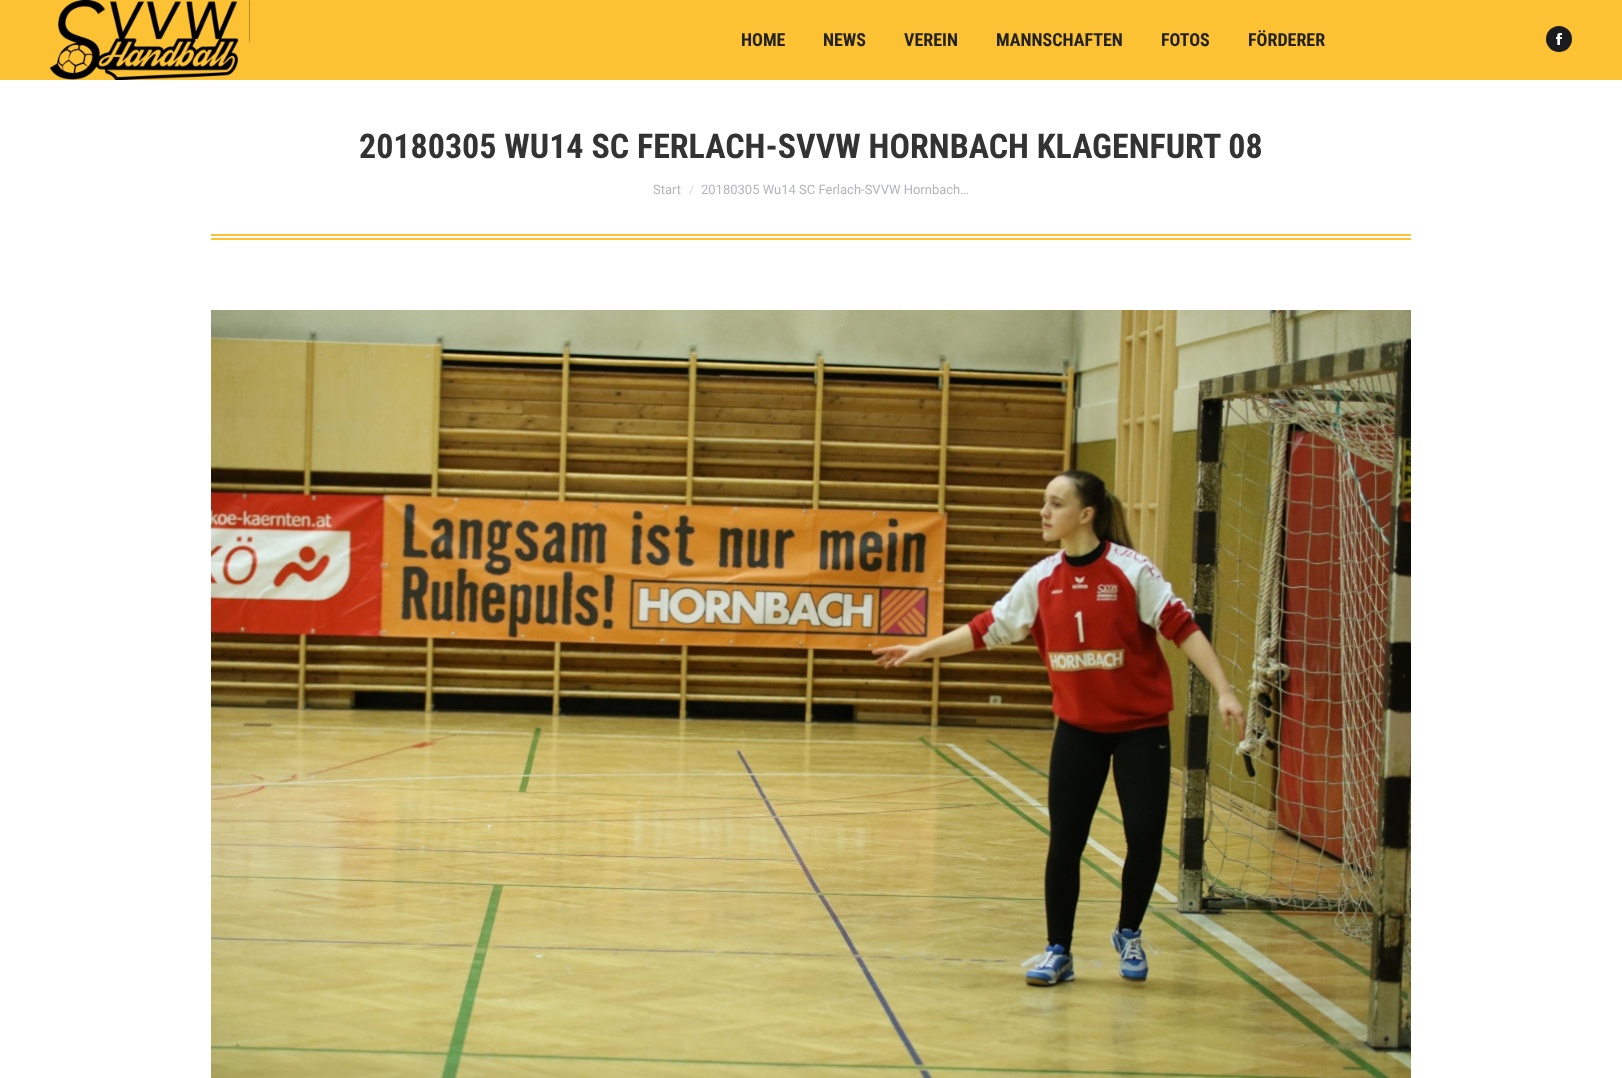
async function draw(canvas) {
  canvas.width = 1622;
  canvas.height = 1078;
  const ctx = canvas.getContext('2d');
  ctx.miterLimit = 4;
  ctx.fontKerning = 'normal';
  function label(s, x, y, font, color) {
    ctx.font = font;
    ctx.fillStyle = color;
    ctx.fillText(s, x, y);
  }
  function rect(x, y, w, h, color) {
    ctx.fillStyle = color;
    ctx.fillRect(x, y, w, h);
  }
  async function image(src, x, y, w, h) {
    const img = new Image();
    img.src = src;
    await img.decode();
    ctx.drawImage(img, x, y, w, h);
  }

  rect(0, 0, 1622, 1078, '#fff');
  rect(0, 0, 1622, 80, '#fdc134');
  await image('assets/img1.png', 50, 0, 200, 80);
  label('HOME', 741, 46, 'bold 18px Roboto Condensed', '#222');
  label('NEWS', 823, 46, 'bold 18px Roboto Condensed', '#222');
  label('VEREIN', 904, 46, 'bold 18px Roboto Condensed', '#222');
  label('MANNSCHAFTEN', 996, 46, 'bold 18px Roboto Condensed', '#222');
  label('FOTOS', 1161, 46, 'bold 18px Roboto Condensed', '#222');
  label('FÖRDERER', 1248, 46, 'bold 18px Roboto Condensed', '#222');
  ctx.fillStyle = '#1a1c20';
  ctx.beginPath();
  ctx.arc(1559, 39, 13, 0, 2 * Math.PI);
  ctx.fill();
  await image('assets/img2.png', 1556, 33, 6, 12);
  label('20180305 WU14 SC FERLACH-SVVW HORNBACH KLAGENFURT 08', 359, 158, 'bold 34px Roboto Condensed', '#333');
  label('Start', 653, 194, '13px Roboto', '#b4b5bb');
  label('/', 689, 194, '13px Roboto', '#dadadd');
  label('20180305 Wu14 SC Ferlach-SVVW Hornbach…', 701, 194, '13px Roboto', '#b4b5bb');
  rect(211, 234, 1200, 2, '#fdc134');
  rect(211, 238, 1200, 2, '#fdc134');
  await image('assets/img3.png', 211, 310, 1200, 768);
}

draw(document.querySelector('canvas'));
